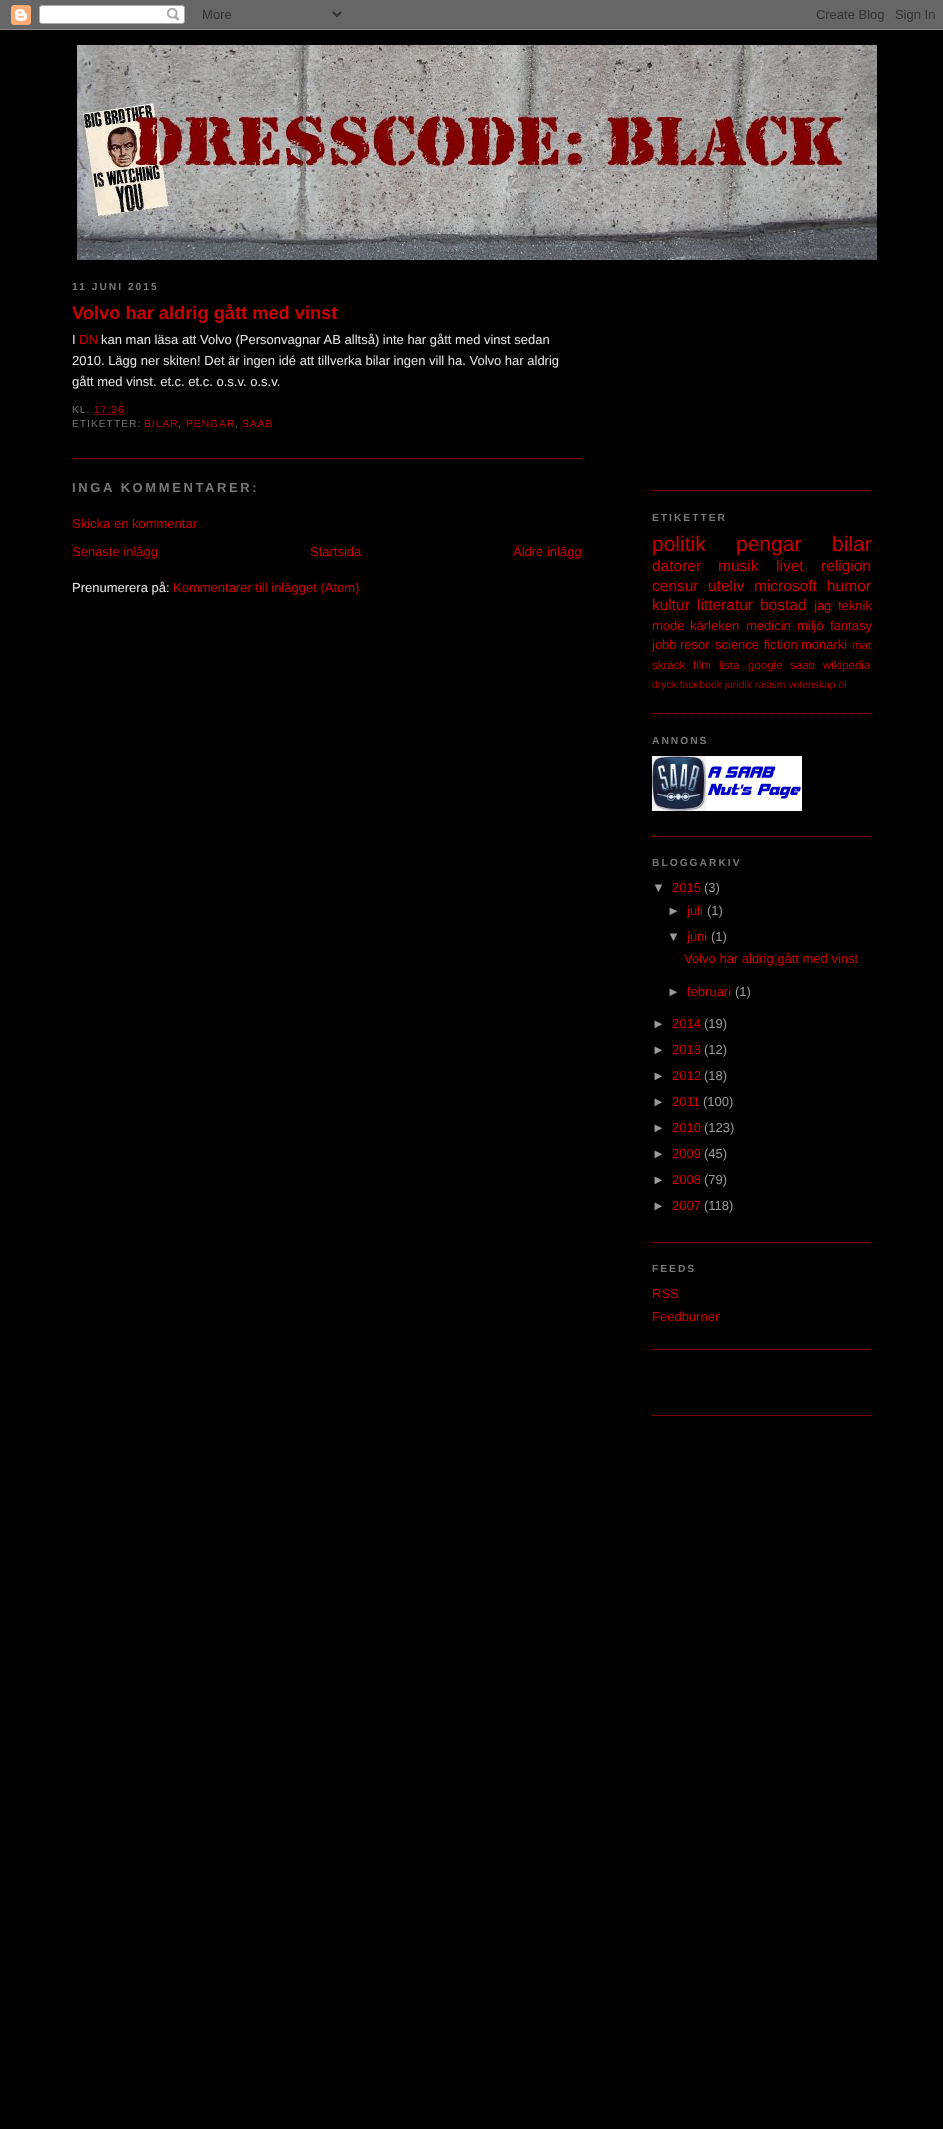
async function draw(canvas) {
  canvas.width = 943;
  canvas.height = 2129;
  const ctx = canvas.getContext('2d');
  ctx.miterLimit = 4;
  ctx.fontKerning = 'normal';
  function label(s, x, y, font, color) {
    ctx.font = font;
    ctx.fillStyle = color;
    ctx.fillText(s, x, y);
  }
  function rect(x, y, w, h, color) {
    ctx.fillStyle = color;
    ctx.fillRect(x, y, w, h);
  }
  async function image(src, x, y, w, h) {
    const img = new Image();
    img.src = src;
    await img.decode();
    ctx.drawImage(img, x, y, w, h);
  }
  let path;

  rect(0, 0, 943, 2129, '#000');
  await image('assets/img1.png', 0, 0, 943, 30);
  await image('assets/img2.png', 77, 45, 800, 215);
  ctx.letterSpacing = '2px';
  label('11 JUNI 2015', 72, 290, 'bold 10.25px Liberation Sans', '#777');
  path = new Path2D('M72 458.5H582');
  ctx.strokeStyle = '#940f04';
  ctx.setLineDash([1, 1]);
  ctx.stroke(path);
  ctx.letterSpacing = '0px';
  label('Volvo har aldrig gått med vinst', 72, 319, 'bold 18.25px Liberation Sans', '#c00');
  label('I', 72, 344, '13px Liberation Sans', '#e6e6e6');
  label('DN', 79, 344, '13px Liberation Sans', '#c00');
  label('kan man läsa att Volvo (Personvagnar AB alltså) inte har gått med vinst sedan', 101, 344, '13px Liberation Sans', '#e6e6e6');
  label('2010. Lägg ner skiten! Det är ingen idé att tillverka bilar ingen vill ha. Volvo har aldrig', 72, 365, '13px Liberation Sans', '#e6e6e6');
  label('gått med vinst. et.c. et.c. o.s.v. o.s.v.', 72, 386, '13px Liberation Sans', '#e6e6e6');
  ctx.letterSpacing = '1px';
  label('KL.', 72, 413, '10.25px Liberation Sans', '#777');
  label('17:36', 94, 413, '10.25px Liberation Sans', '#c00');
  path = new Path2D('M93.5 414.5H124');
  ctx.strokeStyle = '#c00';
  ctx.stroke(path);
  label('ETIKETTER:', 72, 427, '10.25px Liberation Sans', '#777');
  label('BILAR', 144, 427, '10.25px Liberation Sans', '#c00');
  label(',', 178, 427, '10.25px Liberation Sans', '#777');
  label('PENGAR', 186, 427, '10.25px Liberation Sans', '#c00');
  label(',', 235, 427, '10.25px Liberation Sans', '#777');
  label('SAAB', 242, 427, '10.25px Liberation Sans', '#c00');
  ctx.letterSpacing = '2.6px';
  label('INGA KOMMENTARER:', 72, 492, 'bold 13px Liberation Sans', '#777');
  ctx.letterSpacing = '0px';
  label('Skicka en kommentar', 72, 528, '13px Liberation Sans', '#c00');
  label('Senaste inlägg', 72, 556, '13px Liberation Sans', '#c00');
  label('Startsida', 310, 556, '13px Liberation Sans', '#c00');
  label('Äldre inlägg', 513, 556, '13px Liberation Sans', '#c00');
  label('Prenumerera på:', 72, 592, '13px Liberation Sans', '#e6e6e6');
  label('Kommentarer till inlägget (Atom)', 173, 592, '13px Liberation Sans', '#c00');
  path = new Path2D('M652 490.5H872');
  ctx.strokeStyle = '#940f04';
  ctx.stroke(path);
  path = new Path2D('M652 713.5H872');
  ctx.stroke(path);
  ctx.letterSpacing = '2px';
  label('ETIKETTER', 652, 521, 'bold 10.25px Liberation Sans', '#777');
  ctx.letterSpacing = '0px';
  label('politik', 652, 551, '21px Liberation Sans', '#c00');
  label('pengar', 736, 551, '21px Liberation Sans', '#c00');
  label('bilar', 832, 551, '21px Liberation Sans', '#c00');
  label('datorer', 652, 571, '15.5px Liberation Sans', '#c00');
  label('musik', 718, 571, '15.5px Liberation Sans', '#c00');
  label('livet', 776, 571, '15.5px Liberation Sans', '#c00');
  label('religion', 821, 571, '15.5px Liberation Sans', '#c00');
  label('censur', 652, 591, '15.5px Liberation Sans', '#c00');
  label('uteliv', 708, 591, '15.5px Liberation Sans', '#c00');
  label('microsoft', 754, 591, '15.5px Liberation Sans', '#c00');
  label('humor', 827, 591, '15.5px Liberation Sans', '#c00');
  label('kultur', 652, 610, '15.5px Liberation Sans', '#c00');
  label('litteratur', 697, 610, '15.5px Liberation Sans', '#c00');
  label('bostad', 760, 610, '15.5px Liberation Sans', '#c00');
  label('jag', 814, 610, '13px Liberation Sans', '#c00');
  label('teknik', 838, 610, '13px Liberation Sans', '#c00');
  label('mode', 652, 630, '13px Liberation Sans', '#c00');
  label('kärleken', 690, 630, '13px Liberation Sans', '#c00');
  label('medicin', 746, 630, '13px Liberation Sans', '#c00');
  label('miljö', 797, 630, '13px Liberation Sans', '#c00');
  label('fantasy', 830, 630, '13px Liberation Sans', '#c00');
  label('jobb', 652, 649, '13px Liberation Sans', '#c00');
  label('resor', 680, 649, '13px Liberation Sans', '#c00');
  ctx.wordSpacing = '1px';
  label('science fiction', 715, 649, '13px Liberation Sans', '#c00');
  ctx.wordSpacing = '0px';
  label('monarki', 801, 649, '13px Liberation Sans', '#c00');
  label('mat', 852, 649, '11.5px Liberation Sans', '#b80000');
  label('skräck', 652, 669, '11.5px Liberation Sans', '#b80000');
  label('film', 693, 669, '11.5px Liberation Sans', '#b80000');
  label('lista', 719, 669, '11.5px Liberation Sans', '#b80000');
  label('google', 748, 669, '11.5px Liberation Sans', '#b80000');
  label('saab', 790, 669, '11.5px Liberation Sans', '#b80000');
  label('wikipedia', 823, 669, '11.5px Liberation Sans', '#b80000');
  label('dryck facebook juridik rasism vetenskap öl', 652, 688, '10.4px Liberation Sans', '#a30000');
  path = new Path2D('M652 836.5H872');
  ctx.stroke(path);
  ctx.letterSpacing = '2px';
  label('ANNONS', 652, 744, 'bold 10.25px Liberation Sans', '#777');
  await image('assets/img3.png', 652, 756, 150, 55);
  path = new Path2D('M652 1242.5H872');
  ctx.stroke(path);
  label('BLOGGARKIV', 652, 866, 'bold 10.25px Liberation Sans', '#777');
  ctx.letterSpacing = '0px';
  label('▼', 652, 892, '13px Liberation Sans', '#999');
  label('2015', 672, 892, '13px Liberation Sans', '#c00');
  label('(3)', 704, 892, '13px Liberation Sans', '#999');
  label('►', 667, 915, '13px Liberation Sans', '#999');
  label('juli', 687, 915, '13px Liberation Sans', '#c00');
  label('(1)', 707, 915, '13px Liberation Sans', '#999');
  label('▼', 667, 941, '13px Liberation Sans', '#999');
  label('juni', 687, 941, '13px Liberation Sans', '#c00');
  label('(1)', 711, 941, '13px Liberation Sans', '#999');
  label('Volvo har aldrig gått med vinst', 684, 963, '13px Liberation Sans', '#c00');
  label('►', 667, 996, '13px Liberation Sans', '#999');
  label('februari', 687, 996, '13px Liberation Sans', '#c00');
  label('(1)', 735, 996, '13px Liberation Sans', '#999');
  label('►', 652, 1028, '13px Liberation Sans', '#999');
  label('2014', 672, 1028, '13px Liberation Sans', '#c00');
  label('(19)', 704, 1028, '13px Liberation Sans', '#999');
  label('►', 652, 1054, '13px Liberation Sans', '#999');
  label('2013', 672, 1054, '13px Liberation Sans', '#c00');
  label('(12)', 704, 1054, '13px Liberation Sans', '#999');
  label('►', 652, 1080, '13px Liberation Sans', '#999');
  label('2012', 672, 1080, '13px Liberation Sans', '#c00');
  label('(18)', 704, 1080, '13px Liberation Sans', '#999');
  label('►', 652, 1106, '13px Liberation Sans', '#999');
  label('2011', 672, 1106, '13px Liberation Sans', '#c00');
  label('(100)', 703, 1106, '13px Liberation Sans', '#999');
  label('►', 652, 1132, '13px Liberation Sans', '#999');
  label('2010', 672, 1132, '13px Liberation Sans', '#c00');
  label('(123)', 704, 1132, '13px Liberation Sans', '#999');
  label('►', 652, 1158, '13px Liberation Sans', '#999');
  label('2009', 672, 1158, '13px Liberation Sans', '#c00');
  label('(45)', 704, 1158, '13px Liberation Sans', '#999');
  label('►', 652, 1184, '13px Liberation Sans', '#999');
  label('2008', 672, 1184, '13px Liberation Sans', '#c00');
  label('(79)', 704, 1184, '13px Liberation Sans', '#999');
  label('►', 652, 1210, '13px Liberation Sans', '#999');
  label('2007', 672, 1210, '13px Liberation Sans', '#c00');
  label('(118)', 704, 1210, '13px Liberation Sans', '#999');
  path = new Path2D('M652 1349.5H872');
  ctx.stroke(path);
  ctx.letterSpacing = '2px';
  label('FEEDS', 652, 1272, 'bold 10.25px Liberation Sans', '#777');
  ctx.letterSpacing = '0px';
  label('RSS', 652, 1298, '13px Liberation Sans', '#c00');
  label('Feedburner', 652, 1321, '13px Liberation Sans', '#c00');
  path = new Path2D('M652 1415.5H872');
  ctx.stroke(path);
}

draw(document.querySelector('canvas'));
